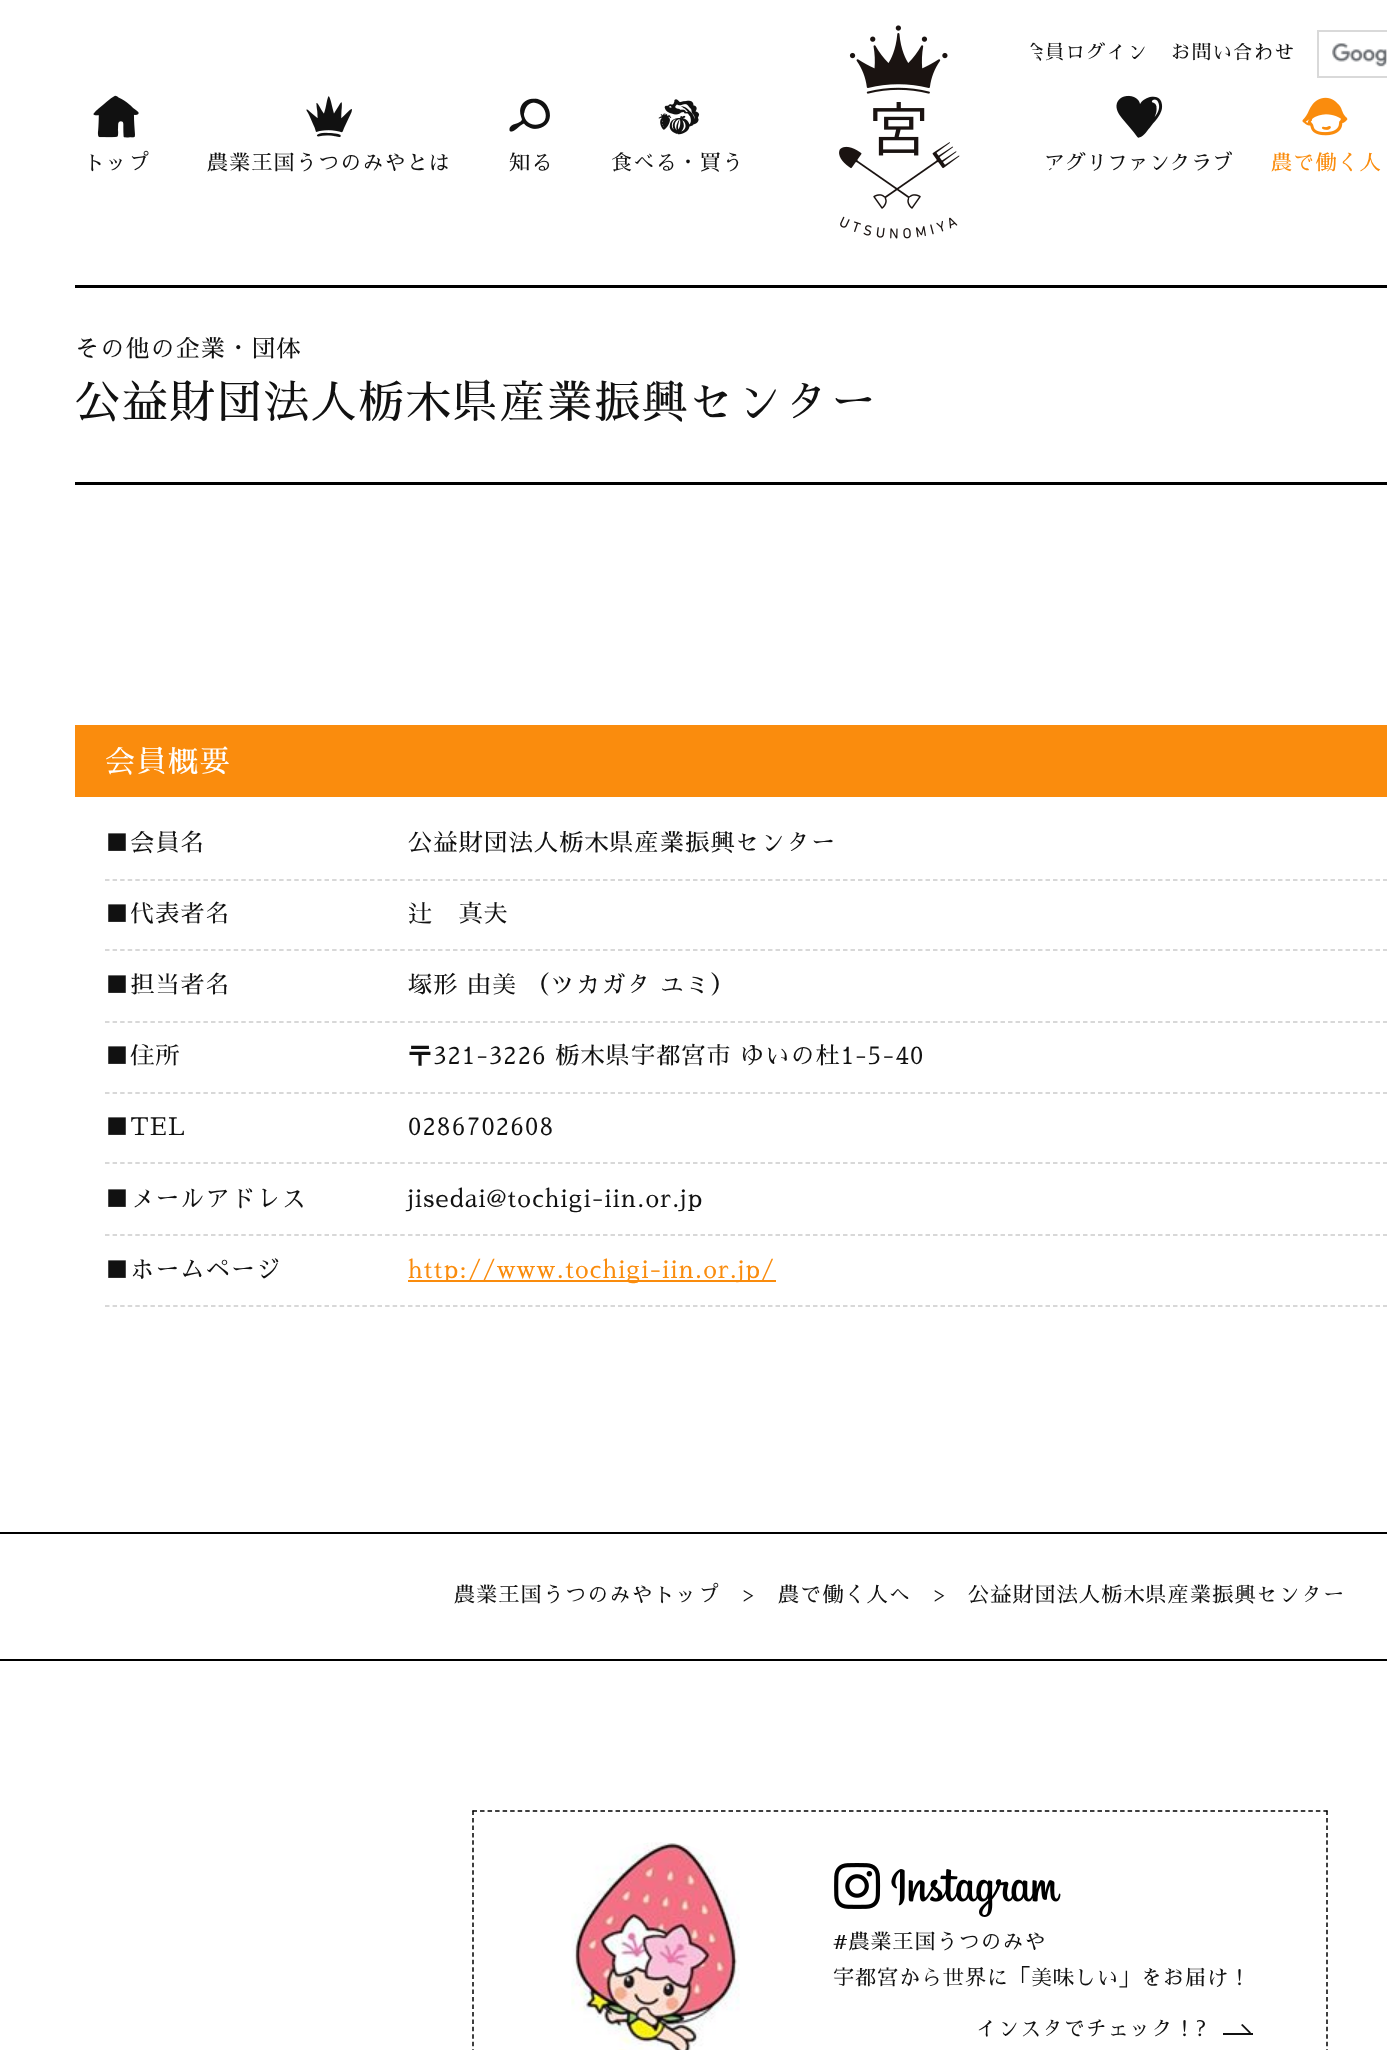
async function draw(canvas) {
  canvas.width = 1387;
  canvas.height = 2050;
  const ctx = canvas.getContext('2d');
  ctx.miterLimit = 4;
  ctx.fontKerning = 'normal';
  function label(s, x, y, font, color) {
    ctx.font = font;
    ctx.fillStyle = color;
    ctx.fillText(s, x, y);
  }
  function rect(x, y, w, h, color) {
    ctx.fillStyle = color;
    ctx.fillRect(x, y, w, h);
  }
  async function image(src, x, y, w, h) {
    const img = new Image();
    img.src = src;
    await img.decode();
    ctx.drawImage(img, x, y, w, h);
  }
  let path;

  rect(0, 0, 1387, 2050, '#fff');
  ctx.letterSpacing = '1.2px';
  label('会員ログイン', 1024, 59, '19.5px Sawarabi Mincho', '#111');
  label('お問い合わせ', 1171, 59, '19.5px Sawarabi Mincho', '#111');
  ctx.strokeStyle = '#d9d9d9';
  ctx.lineWidth = 2;
  ctx.strokeRect(1318, 31, 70, 46);
  await image('assets/img1.png', 1332, 43, 55, 24);
  ctx.letterSpacing = '0px';
  label('アグリファンクラブ', 1044, 170, '21px Sawarabi Mincho', '#111');
  ctx.fillStyle = '#fff';
  ctx.beginPath();
  ctx.arc(900, 120, 150, 0, 2 * Math.PI);
  ctx.fill();
  await image('assets/img2.png', 839, 25, 121, 214);
  await image('assets/img3.png', 1046, 55, 9, 114);
  await image('assets/img4.png', 93, 95, 46, 43);
  ctx.letterSpacing = '1.2px';
  label('トップ', 84, 170, '21px Sawarabi Mincho', '#111');
  await image('assets/img5.png', 306, 96, 46, 42);
  label('農業王国うつのみやとは', 207, 170, '21px Sawarabi Mincho', '#111');
  await image('assets/img6.png', 509, 98, 41, 34);
  label('知る', 509, 170, '21px Sawarabi Mincho', '#111');
  await image('assets/img7.png', 658, 99, 42, 36);
  label('食べる・買う', 611, 170, '21px Sawarabi Mincho', '#111');
  await image('assets/img8.png', 1116, 95, 47, 43);
  await image('assets/img9.png', 1302, 97, 46, 39);
  label('農で働く人', 1271, 170, '21px Sawarabi Mincho', '#fa8c0d');
  rect(75, 285, 1312, 3, '#000');
  rect(75, 482, 1312, 3, '#000');
  label('その他の企業・団体', 75, 357, '24px Sawarabi Mincho', '#111');
  ctx.letterSpacing = '2.25px';
  label('公益財団法人栃木県産業振興センター', 75, 418, '45px Sawarabi Mincho', '#111');
  rect(75, 725, 1312, 72, '#fa8c0d');
  ctx.letterSpacing = '1.5px';
  label('会員概要', 105, 772, '30px Sawarabi Mincho', '#fff');
  path = new Path2D('M105 880H405');
  ctx.strokeStyle = '#ccc';
  ctx.lineWidth = 1.5;
  ctx.setLineDash([4.5, 3.07]);
  ctx.stroke(path);
  ctx.letterSpacing = '1.2px';
  label('■会員名', 105, 851, '24px Sawarabi Mincho', '#111');
  path = new Path2D('M408 880H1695');
  ctx.setLineDash([4.5, 3]);
  ctx.stroke(path);
  label('公益財団法人栃木県産業振興センター', 408, 851, '24px Sawarabi Mincho', '#111');
  path = new Path2D('M105 950H405');
  ctx.setLineDash([4.5, 3.07]);
  ctx.stroke(path);
  label('■代表者名', 105, 922, '24px Sawarabi Mincho', '#111');
  path = new Path2D('M408 950H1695');
  ctx.setLineDash([4.5, 3]);
  ctx.stroke(path);
  label('辻󠄀　真夫', 408, 922, '24px Sawarabi Mincho', '#111');
  path = new Path2D('M105 1022H405');
  ctx.setLineDash([4.5, 3.07]);
  ctx.stroke(path);
  label('■担当者名', 105, 993, '24px Sawarabi Mincho', '#111');
  path = new Path2D('M408 1022H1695');
  ctx.setLineDash([4.5, 3]);
  ctx.stroke(path);
  label('塚形 由美 （ツカガタ ユミ）', 408, 993, '24px Sawarabi Mincho', '#111');
  path = new Path2D('M105 1093H405');
  ctx.setLineDash([4.5, 3.07]);
  ctx.stroke(path);
  label('■住所', 105, 1064, '24px Sawarabi Mincho', '#111');
  path = new Path2D('M408 1093H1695');
  ctx.setLineDash([4.5, 3]);
  ctx.stroke(path);
  label('〒321-3226 栃木県宇都宮市 ゆいの杜1-5-40', 408, 1064, '24px Sawarabi Mincho', '#111');
  path = new Path2D('M105 1163H405');
  ctx.setLineDash([4.5, 3.07]);
  ctx.stroke(path);
  label('■TEL', 105, 1135, '24px Sawarabi Mincho', '#111');
  path = new Path2D('M408 1163H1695');
  ctx.setLineDash([4.5, 3]);
  ctx.stroke(path);
  label('0286702608', 408, 1135, '24px Sawarabi Mincho', '#111');
  path = new Path2D('M105 1235H405');
  ctx.setLineDash([4.5, 3.07]);
  ctx.stroke(path);
  label('■メールアドレス', 105, 1207, '24px Sawarabi Mincho', '#111');
  path = new Path2D('M408 1235H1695');
  ctx.setLineDash([4.5, 3]);
  ctx.stroke(path);
  label('jisedai@tochigi-iin.or.jp', 408, 1207, '24px Sawarabi Mincho', '#111');
  path = new Path2D('M105 1306H405');
  ctx.setLineDash([4.5, 3.07]);
  ctx.stroke(path);
  label('■ホームページ', 105, 1278, '24px Sawarabi Mincho', '#111');
  path = new Path2D('M408 1306H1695');
  ctx.setLineDash([4.5, 3]);
  ctx.stroke(path);
  rect(408, 1280, 368, 2, '#fa8c0d');
  label('http://www.tochigi-iin.or.jp/', 408, 1278, '24px Sawarabi Mincho', '#fa8c0d');
  rect(0, 1532, 1387, 2, '#000');
  rect(0, 1659, 1387, 2, '#000');
  label('農業王国うつのみやトップ', 454, 1602, '21px Sawarabi Mincho', '#111');
  label('>', 743, 1602, '21px Sawarabi Mincho', '#111');
  label('農で働く人へ', 778, 1602, '21px Sawarabi Mincho', '#111');
  label('>', 934, 1602, '21px Sawarabi Mincho', '#111');
  label('公益財団法人栃木県産業振興センター', 968, 1602, '21px Sawarabi Mincho', '#111');
  path = new Path2D('M472.5 1811H1327.5');
  ctx.strokeStyle = '#000';
  ctx.setLineDash([4.5, 3.03]);
  ctx.stroke(path);
  path = new Path2D('M1327 1810.5V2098.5');
  ctx.setLineDash([4.5, 2.96]);
  ctx.stroke(path);
  path = new Path2D('M473 1810.5V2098.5');
  ctx.stroke(path);
  await image('assets/img10.png', 571, 1842, 169, 208);
  await image('assets/img11.png', 834, 1863, 227, 54);
  ctx.letterSpacing = '1px';
  label('#農業王国うつのみや', 833, 1949, '21px Sawarabi Mincho', '#111');
  label('宇都宮から世界に「美味しい」をお届け！', 833, 1985, '21px Sawarabi Mincho', '#111');
  label('インスタでチェック！?', 976, 2036, '21px Sawarabi Mincho', '#111');
  rect(1223, 2033, 30, 2, '#111');
  path = new Path2D('M1242.5 2024L1251 2032.5L1249.5 2033.5L1241 2025Z');
  ctx.fill(path);
}

draw(document.querySelector('canvas'));
